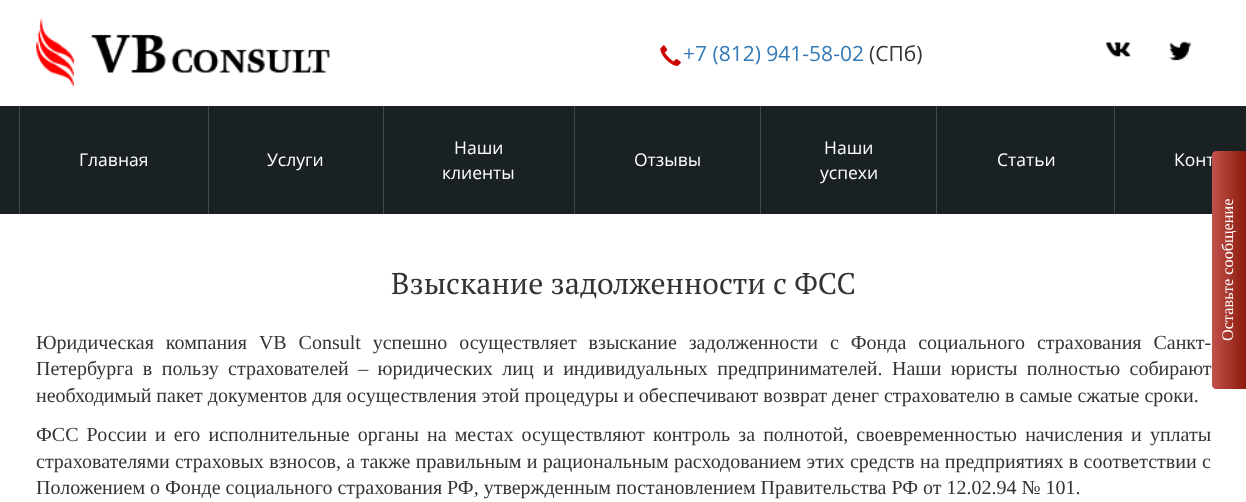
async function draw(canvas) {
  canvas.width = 1246;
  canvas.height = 502;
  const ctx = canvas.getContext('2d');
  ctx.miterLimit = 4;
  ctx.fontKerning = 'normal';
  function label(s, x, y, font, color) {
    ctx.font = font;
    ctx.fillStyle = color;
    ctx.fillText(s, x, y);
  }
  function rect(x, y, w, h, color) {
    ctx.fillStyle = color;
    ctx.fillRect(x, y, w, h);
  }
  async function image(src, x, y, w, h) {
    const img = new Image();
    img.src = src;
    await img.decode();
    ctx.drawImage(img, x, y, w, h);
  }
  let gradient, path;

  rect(0, 0, 1246, 502, '#fff');
  await image('assets/img1.png', 36, 18, 294, 70);
  await image('assets/img2.png', 660, 45, 21, 21);
  label('+7 (812) 941-58-02', 683, 61, '21px Open Sans', '#337ab7');
  label('(СПб)', 869, 61, '21px Open Sans', '#333');
  await image('assets/img3.png', 1106, 42, 25, 15);
  await image('assets/img4.png', 1168, 41, 24, 20);
  rect(0, 106, 1246, 108, '#192123');
  rect(208, 106, 1, 108, '#42494a');
  rect(19, 106, 1, 108, '#42494a');
  label('Главная', 79, 166, '17.5px Open Sans', '#fff');
  rect(383, 106, 1, 108, '#42494a');
  label('Услуги', 267, 166, '17.5px Open Sans', '#fff');
  rect(574, 106, 1, 108, '#42494a');
  label('Наши', 454, 154, '17.5px Open Sans', '#fff');
  label('клиенты', 442, 179, '17.5px Open Sans', '#fff');
  rect(760, 106, 1, 108, '#42494a');
  label('Отзывы', 634, 166, '17.5px Open Sans', '#fff');
  rect(936, 106, 1, 108, '#42494a');
  label('Наши', 824, 154, '17.5px Open Sans', '#fff');
  label('успехи', 820, 179, '17.5px Open Sans', '#fff');
  rect(1114, 106, 1, 108, '#42494a');
  label('Статьи', 997, 166, '17.5px Open Sans', '#fff');
  label('Конт', 1174, 166, '17.5px Open Sans', '#fff');
  label('Взыскание задолженности с ФСС', 391, 294, '30px PT Serif', '#333');
  ctx.wordSpacing = '6.9px';
  label('Юридическая компания VB Consult успешно осуществляет взыскание задолженности с Фонда социального страхования Санкт-', 36, 349, '20px Liberation Serif', '#333');
  ctx.wordSpacing = '4.4px';
  label('Петербурга в пользу страхователей – юридических лиц и индивидуальных предпринимателей. Наши юристы полностью собирают', 36, 375, '20px Liberation Serif', '#333');
  ctx.wordSpacing = '0px';
  label('необходимый пакет документов для осуществления этой процедуры и обеспечивают возврат денег страхователю в самые сжатые сроки.', 36, 402, '20px Liberation Serif', '#333');
  ctx.wordSpacing = '3.1px';
  label('ФСС России и его исполнительные органы на местах осуществляют контроль за полнотой, своевременностью начисления и уплаты', 36, 441, '20px Liberation Serif', '#333');
  ctx.wordSpacing = '0.3px';
  label('страхователями страховых взносов, а также правильным и рациональным расходованием этих средств на предприятиях в соответствии с', 36, 468, '20px Liberation Serif', '#333');
  ctx.wordSpacing = '0px';
  label('Положением о Фонде социального страхования РФ, утвержденным постановлением Правительства РФ от 12.02.94 № 101.', 36, 494, '20px Liberation Serif', '#333');
  gradient = ctx.createLinearGradient(1213, 270, 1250, 270);
  gradient.addColorStop(0, '#c0504a');
  gradient.addColorStop(1, '#851304');
  ctx.fillStyle = gradient;
  path = new Path2D('M1212 385C1212 387 1214 389 1216 389H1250V151H1216C1214 151 1212 153 1212 155Z');
  ctx.fill(path);
  ctx.font = '16.25px Liberation Serif';
  ctx.fillStyle = '#fff';
  ctx.save();
  ctx.translate(1233, 341);
  ctx.rotate(-90 * Math.PI / 180);
  ctx.fillText('Оставьте сообщение', 0, 0);
  ctx.restore();
}

draw(document.querySelector('canvas'));
